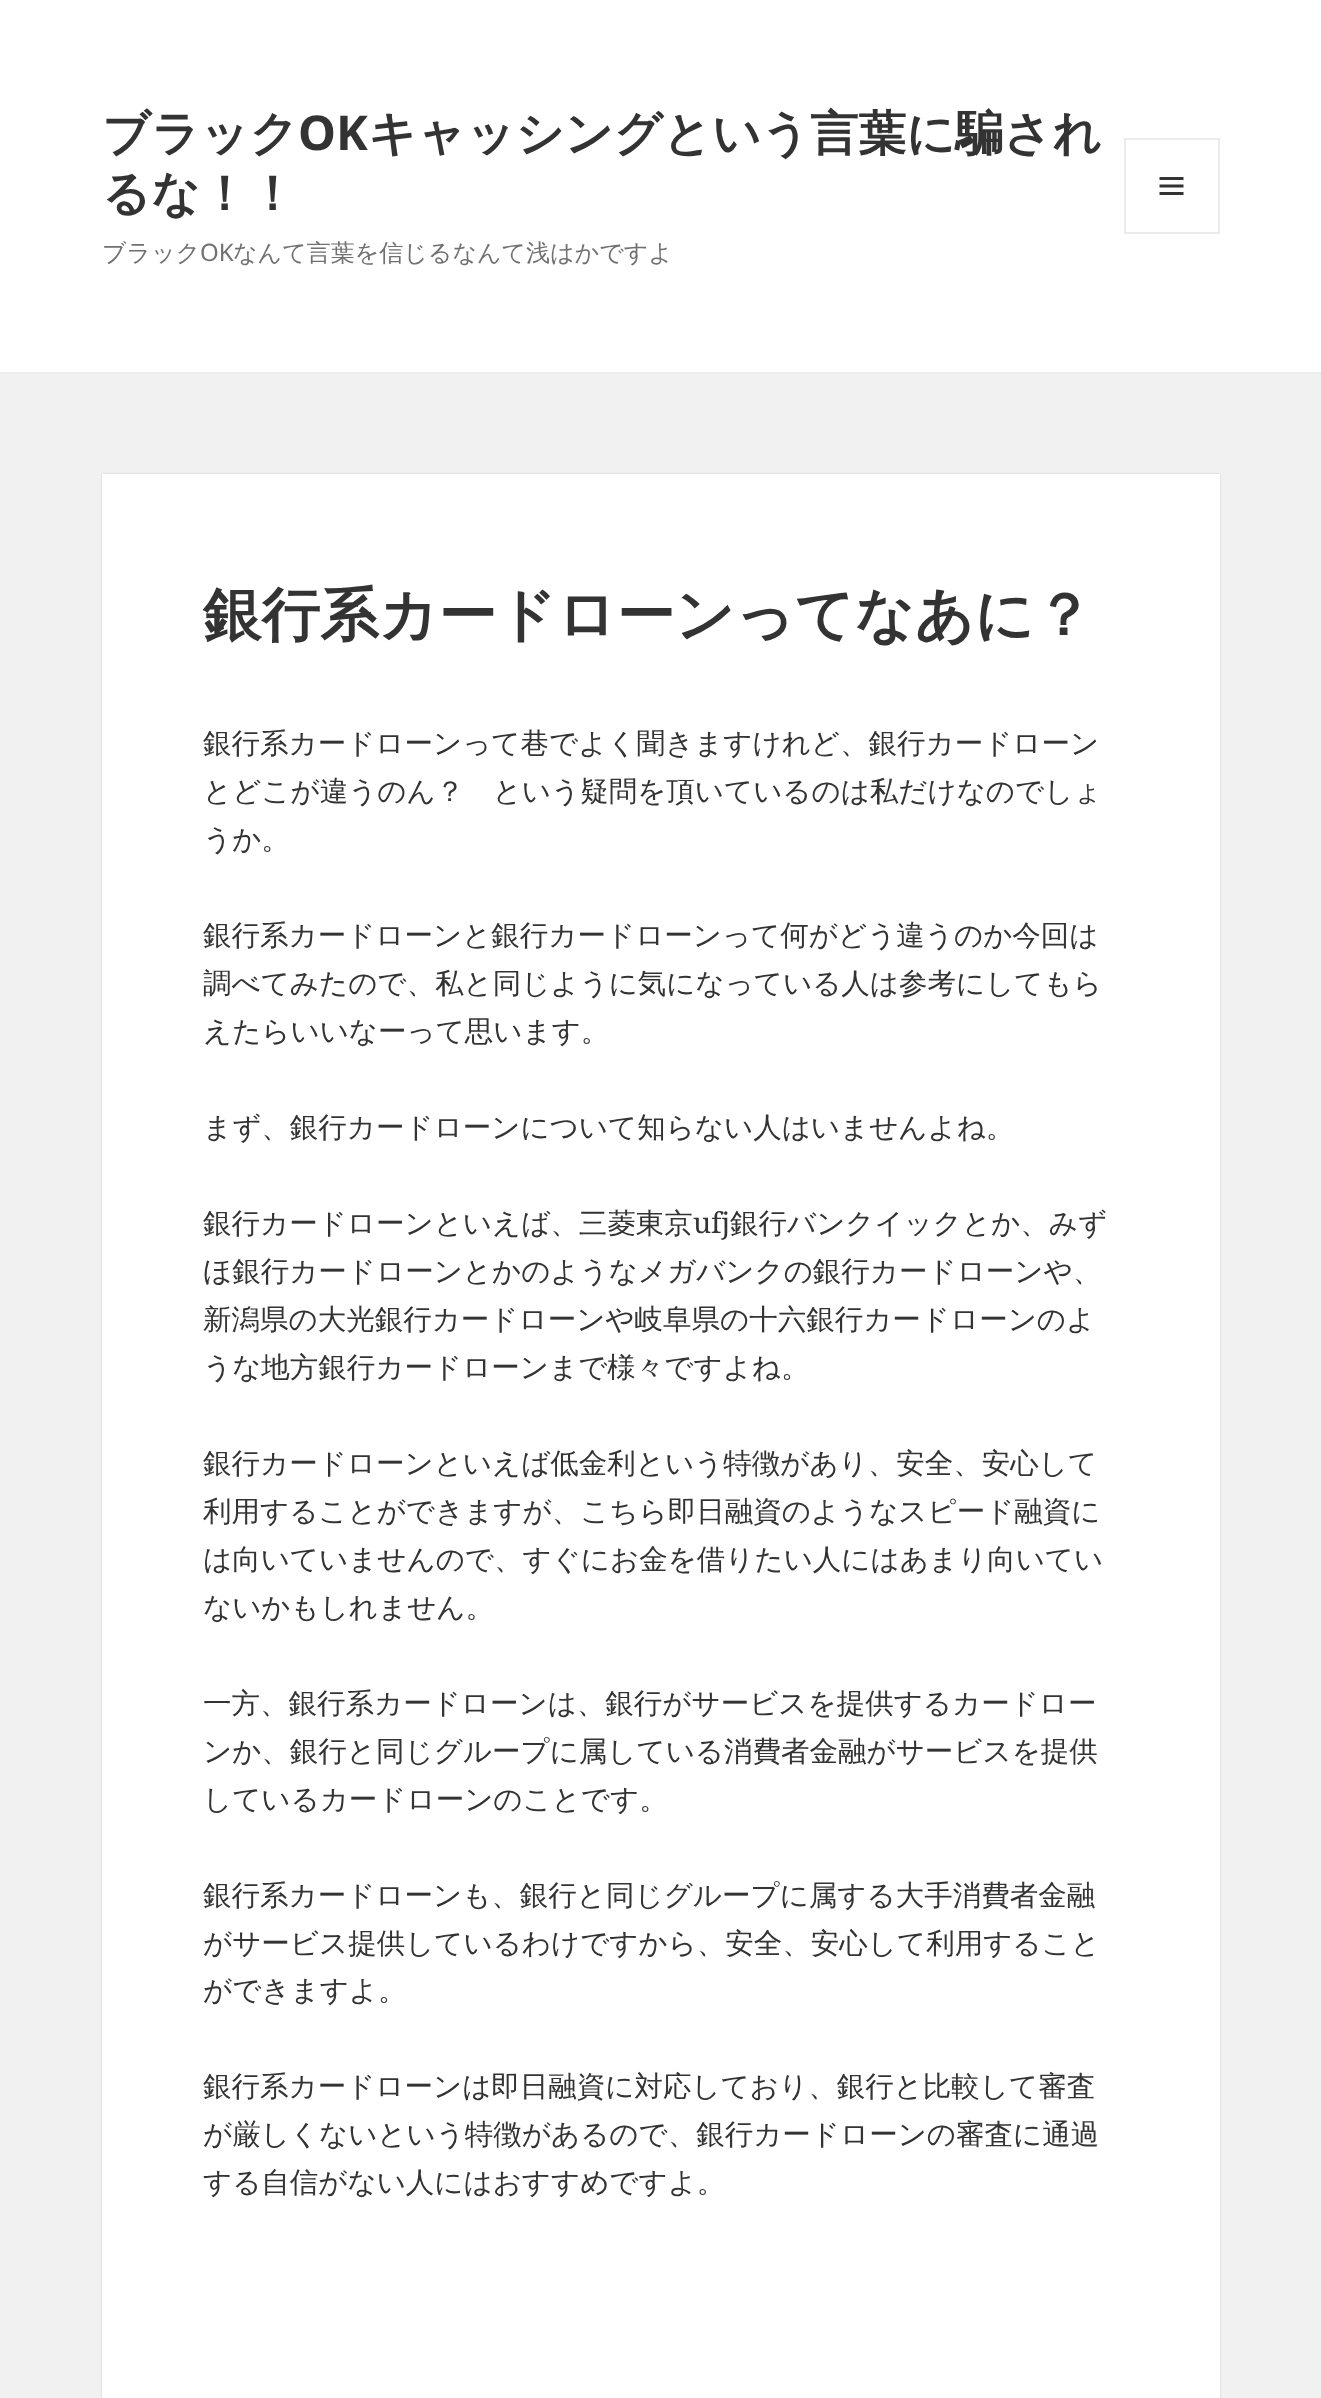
async function draw(canvas) {
  canvas.width = 1321;
  canvas.height = 2398;
  const ctx = canvas.getContext('2d');
  ctx.miterLimit = 4;
  ctx.fontKerning = 'normal';
  function label(s, x, y, font, color) {
    ctx.font = font;
    ctx.fillStyle = color;
    ctx.fillText(s, x, y);
  }
  function rect(x, y, w, h, color) {
    ctx.fillStyle = color;
    ctx.fillRect(x, y, w, h);
  }
  async function image(src, x, y, w, h) {
    const img = new Image();
    img.src = src;
    await img.decode();
    ctx.drawImage(img, x, y, w, h);
  }

  rect(0, 0, 1321, 2398, '#f1f1f1');
  rect(0, 0, 1321, 372, '#fff');
  rect(0, 372, 1321, 2, '#ebebeb');
  label('ブラック', 102, 150, 'bold 48px WenQuanYi Zen Hei', '#333');
  label('OK', 298, 150, 'bold 48px Noto Sans', '#333');
  label('キャッシングという言葉に騙され', 368, 150, 'bold 48px WenQuanYi Zen Hei', '#333');
  label('るな！！', 102, 210, 'bold 48px WenQuanYi Zen Hei', '#333');
  ctx.strokeStyle = '#ebebeb';
  ctx.lineWidth = 2;
  ctx.strokeRect(1125, 139, 94, 94);
  await image('assets/img1.png', 1159, 177, 25, 18);
  label('ブラック', 102, 261, '500 24px WenQuanYi Zen Hei', '#707070');
  label('OK', 200, 261, '24px Noto Sans', '#707070');
  label('なんて言葉を信じるなんて浅はかですよ', 233, 261, '500 24px WenQuanYi Zen Hei', '#707070');
  ctx.fillStyle = '#00000026';
  ctx.filter = 'blur(1px)';
  ctx.beginPath();
  ctx.rect(102, 474, 1118, 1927);
  ctx.fill();
  ctx.filter = 'none';
  rect(102, 474, 1118, 1924, '#fff');
  label('銀行系カードローンってなあに？', 203, 635, 'bold 58.5px WenQuanYi Zen Hei', '#333');
  label('銀行系カードローンって巷でよく聞きますけれど、銀行カードローン', 203, 753, '500 28.5px WenQuanYi Zen Hei', '#333');
  label('とどこが違うのん？　という疑問を頂いているのは私だけなのでしょ', 203, 801, '500 28.5px WenQuanYi Zen Hei', '#333');
  label('うか。', 203, 849, '500 28.5px WenQuanYi Zen Hei', '#333');
  label('銀行系カードローンと銀行カードローンって何がどう違うのか今回は', 203, 945, '500 28.5px WenQuanYi Zen Hei', '#333');
  label('調べてみたので、私と同じように気になっている人は参考にしてもら', 203, 993, '500 28.5px WenQuanYi Zen Hei', '#333');
  label('えたらいいなーって思います。', 203, 1041, '500 28.5px WenQuanYi Zen Hei', '#333');
  label('まず、銀行カードローンについて知らない人はいませんよね。', 203, 1137, '500 28.5px WenQuanYi Zen Hei', '#333');
  label('銀行カードローンといえば、三菱東京', 203, 1233, '500 28.5px WenQuanYi Zen Hei', '#333');
  label('ufj', 693, 1233, '28.5px Noto Serif', '#333');
  label('銀行バンクイックとか、みず', 730, 1233, '500 28.5px WenQuanYi Zen Hei', '#333');
  label('ほ銀行カードローンとかのようなメガバンクの銀行カードローンや、', 203, 1281, '500 28.5px WenQuanYi Zen Hei', '#333');
  label('新潟県の大光銀行カードローンや岐阜県の十六銀行カードローンのよ', 203, 1329, '500 28.5px WenQuanYi Zen Hei', '#333');
  label('うな地方銀行カードローンまで様々ですよね。', 203, 1377, '500 28.5px WenQuanYi Zen Hei', '#333');
  label('銀行カードローンといえば低金利という特徴があり、安全、安心して', 203, 1473, '500 28.5px WenQuanYi Zen Hei', '#333');
  label('利用することができますが、こちら即日融資のようなスピード融資に', 203, 1521, '500 28.5px WenQuanYi Zen Hei', '#333');
  label('は向いていませんので、すぐにお金を借りたい人にはあまり向いてい', 203, 1569, '500 28.5px WenQuanYi Zen Hei', '#333');
  label('ないかもしれません。', 203, 1617, '500 28.5px WenQuanYi Zen Hei', '#333');
  label('一方、銀行系カードローンは、銀行がサービスを提供するカードロー', 203, 1713, '500 28.5px WenQuanYi Zen Hei', '#333');
  label('ンか、銀行と同じグループに属している消費者金融がサービスを提供', 203, 1761, '500 28.5px WenQuanYi Zen Hei', '#333');
  label('しているカードローンのことです。', 203, 1809, '500 28.5px WenQuanYi Zen Hei', '#333');
  label('銀行系カードローンも、銀行と同じグループに属する大手消費者金融', 203, 1905, '500 28.5px WenQuanYi Zen Hei', '#333');
  label('がサービス提供しているわけですから、安全、安心して利用すること', 203, 1953, '500 28.5px WenQuanYi Zen Hei', '#333');
  label('ができますよ。', 203, 2000, '500 28.5px WenQuanYi Zen Hei', '#333');
  label('銀行系カードローンは即日融資に対応しており、銀行と比較して審査', 203, 2096, '500 28.5px WenQuanYi Zen Hei', '#333');
  label('が厳しくないという特徴があるので、銀行カードローンの審査に通過', 203, 2144, '500 28.5px WenQuanYi Zen Hei', '#333');
  label('する自信がない人にはおすすめですよ。', 203, 2192, '500 28.5px WenQuanYi Zen Hei', '#333');
}

draw(document.querySelector('canvas'));
